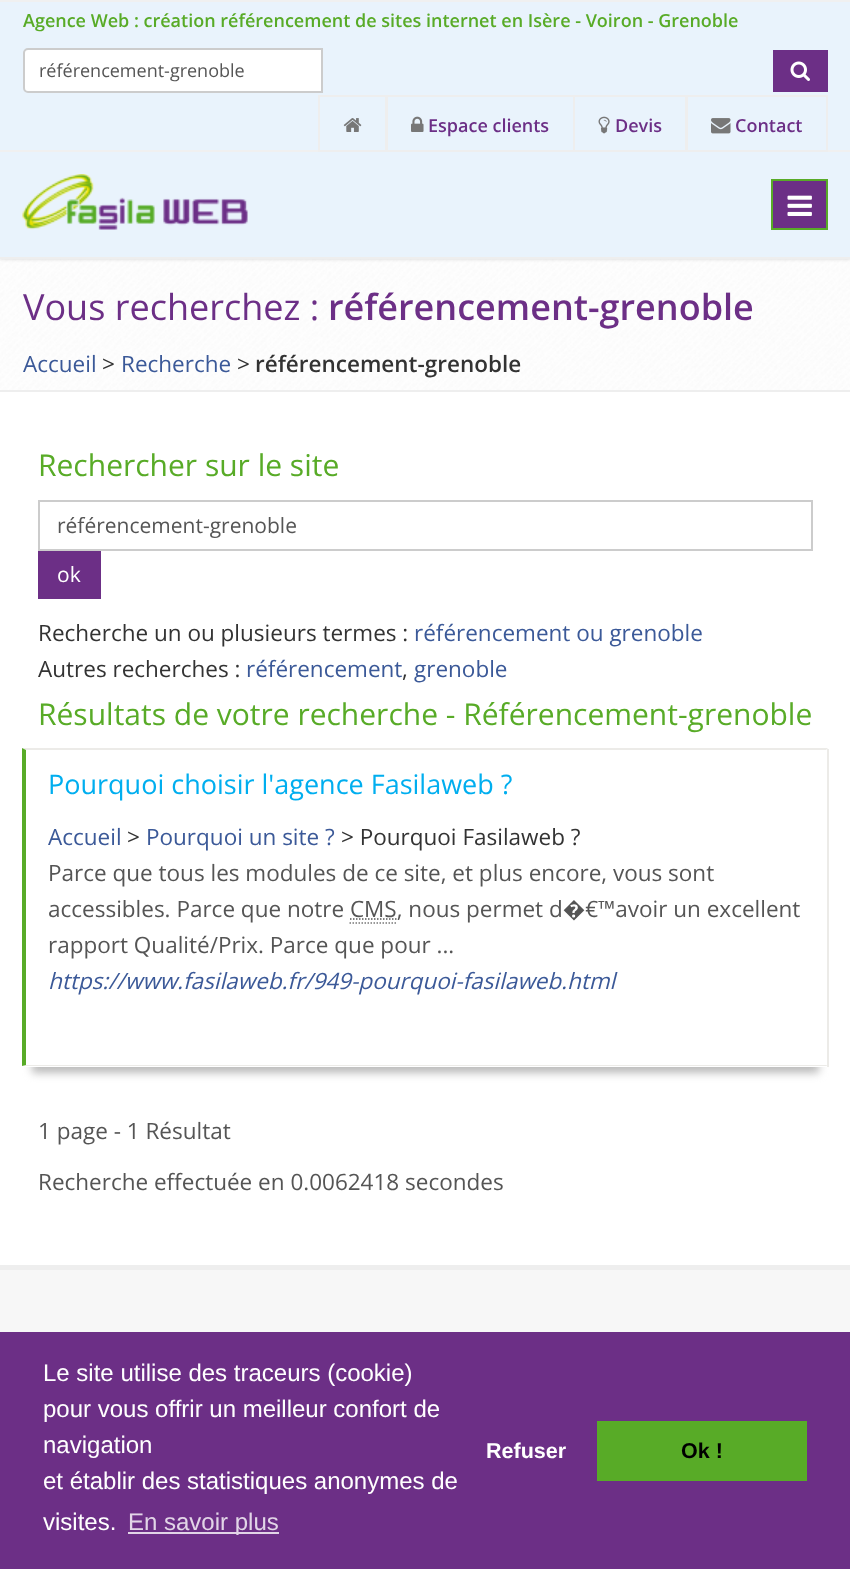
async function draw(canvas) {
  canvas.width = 850;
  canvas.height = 1569;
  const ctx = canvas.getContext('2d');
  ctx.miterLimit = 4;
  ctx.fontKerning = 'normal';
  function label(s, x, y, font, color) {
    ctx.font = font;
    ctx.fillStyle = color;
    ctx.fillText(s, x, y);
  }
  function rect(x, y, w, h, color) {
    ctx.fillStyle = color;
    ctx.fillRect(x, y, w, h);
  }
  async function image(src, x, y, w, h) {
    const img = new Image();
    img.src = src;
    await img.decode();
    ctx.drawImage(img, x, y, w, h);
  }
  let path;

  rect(0, 0, 850, 1569, '#fff');
  await image('assets/img8.png', 0, 259, 850, 131);
  ctx.fillStyle = '#bbb';
  ctx.filter = 'blur(2px)';
  ctx.beginPath();
  ctx.rect(0, 0, 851, 258);
  ctx.fill();
  ctx.filter = 'none';
  rect(0, 257, 850, 2, '#eee');
  rect(0, 2, 850, 148, '#e9f3fc');
  rect(0, 0, 850, 2, '#f0f0f0');
  rect(0, 150, 850, 2, '#f0f0f0');
  label('Agence Web : création référencement de sites internet en Isère - Voiron - Grenoble', 23, 27, '600 18px Open Sans', '#58ab27');
  ctx.fillStyle = '#fff';
  ctx.beginPath();
  ctx.roundRect(24, 49, 298, 43, [4, 0, 0, 4]);
  ctx.fill();
  ctx.strokeStyle = '#ccc';
  ctx.lineWidth = 2;
  ctx.stroke();
  label('référencement-grenoble', 39, 77, '18px Open Sans', '#555');
  rect(773, 50, 55, 42, '#6c2f86');
  await image('assets/img1.png', 790, 61, 20, 20);
  ctx.strokeStyle = '#eee';
  ctx.strokeRect(319, 96, 67, 55);
  await image('assets/img2.png', 343, 118, 19, 14);
  ctx.strokeRect(387, 96, 187, 55);
  await image('assets/img3.png', 411, 116, 13, 16);
  label('Espace clients', 428, 132, '600 18px Open Sans', '#6c2f86');
  ctx.strokeRect(574, 96, 112, 55);
  await image('assets/img4.png', 598, 116, 12, 18);
  label('Devis', 615, 132, '600 18px Open Sans', '#6c2f86');
  ctx.strokeRect(687, 96, 140, 55);
  await image('assets/img5.png', 711, 118, 20, 16);
  label('Contact', 735, 132, '600 18px Open Sans', '#6c2f86');
  rect(0, 152, 850, 105, '#e9f3fc');
  await image('assets/img6.png', 22, 174, 226, 56);
  ctx.fillStyle = '#6c2f86';
  ctx.beginPath();
  ctx.rect(772, 180, 55, 49);
  ctx.fill();
  ctx.strokeStyle = '#58ab27';
  ctx.stroke();
  await image('assets/img7.png', 787, 195, 25, 21);
  rect(0, 390, 850, 2, '#eee');
  label('Vous recherchez :', 23, 320, '36px Open Sans', '#6c2f86');
  label('référencement-grenoble', 328, 320, '600 36px Open Sans', '#6c2f86');
  label('Accueil', 23, 372, '22.5px Open Sans', '#3b5998');
  label('>', 102, 372, '22.5px Open Sans', '#333');
  label('Recherche', 121, 372, '22.5px Open Sans', '#3b5998');
  label('>', 237, 372, '22.5px Open Sans', '#333');
  label('référencement-grenoble', 255, 372, '600 22.5px Open Sans', '#333');
  label('Rechercher sur le site', 38, 476, '30px Open Sans', '#58ab27');
  ctx.strokeStyle = '#ccc';
  ctx.strokeRect(39, 501, 773, 49);
  label('référencement-grenoble', 57, 533, '21px Open Sans', '#555');
  rect(38, 551, 63, 48, '#6c2f86');
  label('ok', 57, 582, '21px Open Sans', '#fff');
  label('Recherche un ou plusieurs termes :', 38, 641, '22.5px Open Sans', '#333');
  label('référencement ou grenoble', 414, 641, '22.5px Open Sans', '#3b5998');
  label('Autres recherches :', 38, 677, '22.5px Open Sans', '#333');
  label('référencement', 246, 677, '22.5px Open Sans', '#3b5998');
  label(',', 402, 677, '22.5px Open Sans', '#333');
  label('grenoble', 414, 677, '22.5px Open Sans', '#3b5998');
  label('Résultats de votre recherche - Référencement-grenoble', 38, 725, '30px Open Sans', '#58ab27');
  ctx.save();
  path = new Path2D('M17 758H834V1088H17ZM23 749H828V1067H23Z');
  ctx.clip(path, 'evenodd');
  ctx.fillStyle = '#bbb';
  ctx.filter = 'blur(4.5px)';
  ctx.beginPath();
  ctx.rect(32, 773, 787, 300);
  ctx.fill();
  ctx.filter = 'none';
  ctx.restore();
  ctx.fillStyle = '#ecebe8';
  path = new Path2D('M22 748H828L826 750H26Z');
  ctx.fill(path);
  rect(827, 749, 2, 318, '#ecebe8');
  path = new Path2D('M828 1066H22L26 1065H826Z');
  ctx.fill(path);
  ctx.fillStyle = '#58ab27';
  path = new Path2D('M22 1066V748L26 750V1065Z');
  ctx.fill(path);
  label('Pourquoi choisir l\'agence Fasilaweb ?', 48, 794, '27px Open Sans', '#00aeef');
  label('Accueil', 48, 845, '22.5px Open Sans', '#3b5998');
  label('>', 127, 845, '22.5px Open Sans', '#333');
  label('Pourquoi un site ?', 146, 845, '22.5px Open Sans', '#3b5998');
  label('> Pourquoi Fasilaweb ?', 341, 845, '22.5px Open Sans', '#333');
  label('Parce que tous les modules de ce site, et plus encore, vous sont', 48, 881, '22.5px Open Sans', '#555');
  label('accessibles. Parce que notre CMS, nous permet d�€™avoir un excellent', 48, 917, '22.5px Open Sans', '#555');
  path = new Path2D('M350 919H396.5');
  ctx.strokeStyle = '#555';
  ctx.lineWidth = 1.5;
  ctx.setLineDash([1.5, 1.5]);
  ctx.stroke(path);
  path = new Path2D('M349.5 923H396');
  ctx.strokeStyle = '#777';
  ctx.stroke(path);
  label('rapport Qualité/Prix. Parce que pour ...', 48, 953, '22.5px Open Sans', '#555');
  label('https://www.fasilaweb.fr/949-pourquoi-fasilaweb.html', 48, 989, 'italic 22.5px Open Sans', '#3b5998');
  label('1 page - 1 Résultat', 38, 1139, '22.5px Open Sans', '#555');
  label('Recherche effectuée en 0.0062418 secondes', 38, 1190, '22.5px Open Sans', '#555');
  rect(0, 1270, 850, 62, '#f7f7f7');
  rect(0, 1265, 850, 5, '#eee');
  rect(0, 1332, 850, 237, '#6c2f86');
  label('Le site utilise des traceurs (cookie)', 43, 1381, '24px Liberation Sans', '#fff');
  label('pour vous offrir un meilleur confort de', 43, 1417, '24px Liberation Sans', '#fff');
  label('navigation', 43, 1453, '24px Liberation Sans', '#fff');
  label('et établir des statistiques anonymes de', 43, 1489, '24px Liberation Sans', '#fff');
  label('visites.', 43, 1530, '24px Liberation Sans', '#fff');
  rect(128, 1532, 151, 2, '#e2d5e7');
  label('En savoir plus', 128, 1530, '24px Liberation Sans', '#e2d5e7');
  label('Refuser', 486, 1458, 'bold 21.5px Liberation Sans', '#fff');
  rect(597, 1421, 210, 60, '#58ab27');
  label('Ok !', 681, 1458, 'bold 21.5px Liberation Sans', '#000');
}

draw(document.querySelector('canvas'));
